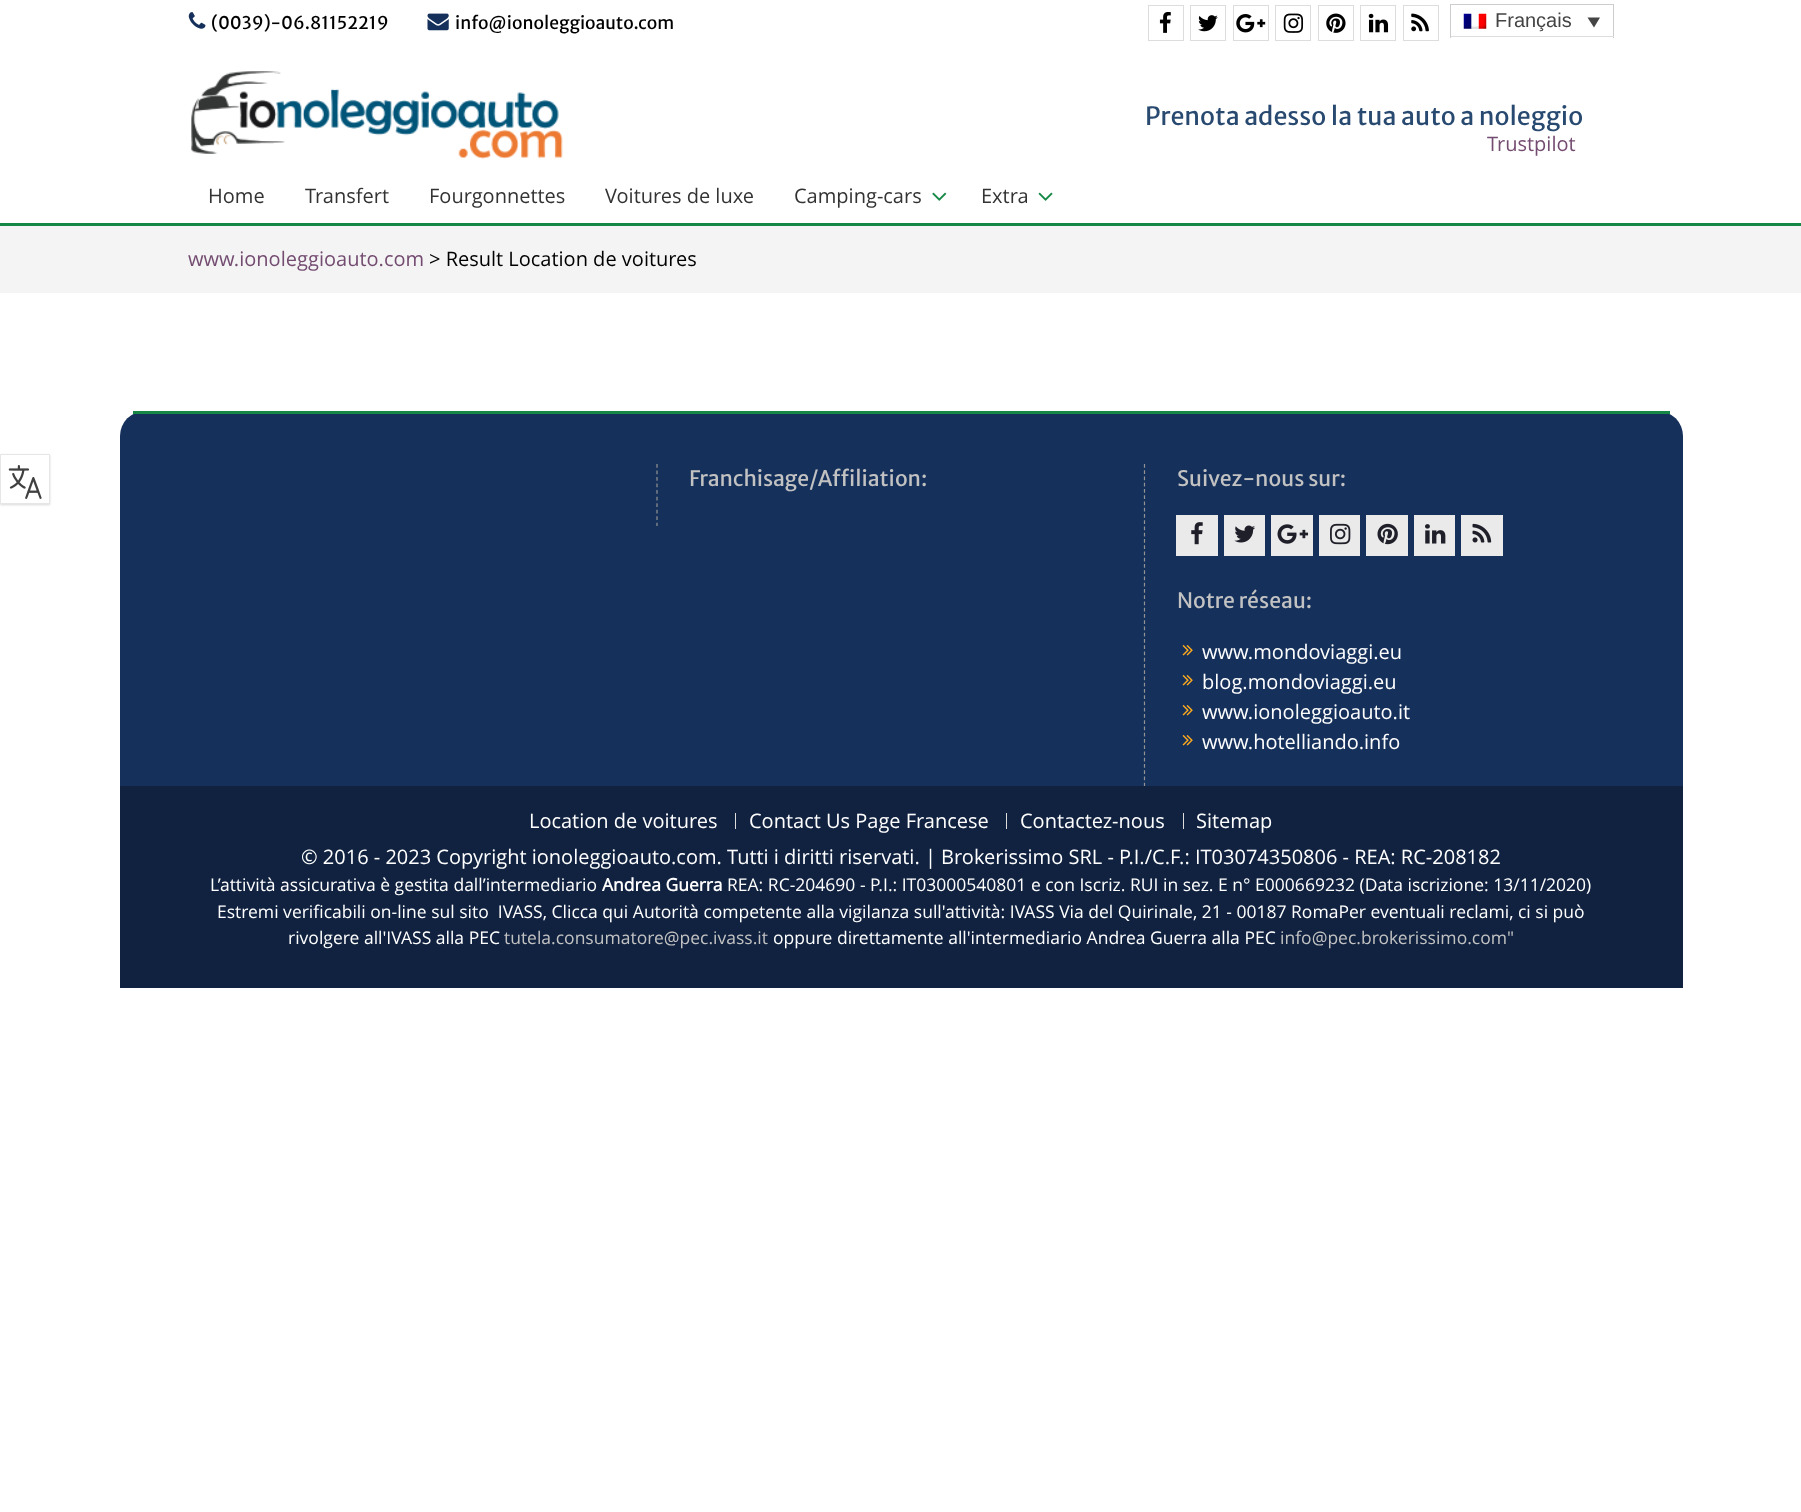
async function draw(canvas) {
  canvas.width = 1801;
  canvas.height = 1512;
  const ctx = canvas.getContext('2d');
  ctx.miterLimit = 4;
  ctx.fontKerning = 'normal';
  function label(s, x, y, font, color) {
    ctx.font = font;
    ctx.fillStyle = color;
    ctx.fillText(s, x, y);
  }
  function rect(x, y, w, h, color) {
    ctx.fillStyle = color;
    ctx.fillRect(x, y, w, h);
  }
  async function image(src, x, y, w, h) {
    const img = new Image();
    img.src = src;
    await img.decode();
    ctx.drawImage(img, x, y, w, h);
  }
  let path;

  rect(0, 0, 1801, 1512, '#fff');
  await image('assets/img1.png', 188, 12, 18, 17);
  label('(0039)-06.81152219', 211, 29, '17.5px Merriweather Sans', '#000');
  await image('assets/img2.png', 427, 13, 22, 18);
  label('info@ionoleggioauto.com', 455, 29, '17.5px Merriweather Sans', '#000');
  ctx.strokeStyle = '#ddd';
  ctx.strokeRect(1148.5, 5.5, 35, 35);
  await image('assets/img3.png', 1159, 12, 12, 21);
  ctx.strokeRect(1190.5, 5.5, 35, 35);
  await image('assets/img4.png', 1198, 15, 20, 17);
  ctx.strokeRect(1233.5, 5.5, 35, 35);
  await image('assets/img5.png', 1236, 14, 30, 19);
  ctx.strokeRect(1275.5, 5.5, 35, 35);
  await image('assets/img6.png', 1283, 13, 21, 20);
  ctx.strokeRect(1318.5, 5.5, 35, 35);
  await image('assets/img7.png', 1326, 13, 20, 20);
  ctx.strokeRect(1360.5, 5.5, 35, 35);
  await image('assets/img8.png', 1368, 13, 21, 20);
  ctx.strokeRect(1403.5, 5.5, 35, 35);
  await image('assets/img9.png', 1411, 13, 18, 19);
  rect(1450, 4, 164, 1, '#cdcdcd');
  rect(1613, 4, 1, 34, '#cdcdcd');
  rect(1450, 36, 164, 1, '#ddd');
  rect(1450, 4, 1, 34, '#cdcdcd');
  await image('assets/img10.png', 1463, 13, 24, 16);
  label('Français', 1495, 27, '20px Liberation Sans', '#444');
  path = new Path2D('M1587.5 17.5H1600L1594 27.5Z');
  ctx.fill(path);
  await image('assets/img11.png', 191, 71, 372, 88);
  label('Prenota adesso la tua auto a noleggio', 1145, 125, '25px Merriweather Sans', '#294a70');
  label('Trustpilot', 1487, 151, '20px Open Sans', '#744c71');
  rect(0, 223, 1801, 3, '#168846');
  label('Home', 208, 203, '20px Open Sans', '#333');
  label('Transfert', 305, 203, '20px Open Sans', '#333');
  label('Fourgonnettes', 429, 203, '20px Open Sans', '#333');
  label('Voitures de luxe', 605, 203, '20px Open Sans', '#333');
  label('Camping-cars', 794, 203, '20px Open Sans', '#333');
  await image('assets/img12.png', 932, 192, 15, 9);
  label('Extra', 981, 203, '20px Open Sans', '#333');
  await image('assets/img13.png', 1038, 192, 15, 9);
  rect(0, 226, 1801, 67, '#f4f4f4');
  label('www.ionoleggioauto.com', 188, 266, '20px Open Sans', '#744c71');
  label('> Result Location de voitures', 429, 266, '20px Open Sans', '#000');
  ctx.fillStyle = '#00000026';
  ctx.filter = 'blur(1px)';
  ctx.beginPath();
  ctx.rect(0, 455, 50, 50);
  ctx.fill();
  ctx.filter = 'none';
  ctx.fillStyle = '#fff';
  ctx.beginPath();
  ctx.rect(0.5, 454.5, 49, 49);
  ctx.fill();
  ctx.strokeStyle = '#e6e6e6';
  ctx.stroke();
  await image('assets/img14.png', 8, 465, 34, 34);
  ctx.fillStyle = '#15305b';
  ctx.beginPath();
  ctx.roundRect(120, 411, 1563, 375, [25, 25, 0, 0]);
  ctx.fill();
  rect(133, 411, 1537, 3, '#168846');
  path = new Path2D('M657 464V526');
  ctx.strokeStyle = '#939393';
  ctx.lineWidth = 1.2;
  ctx.setLineDash([3.75, 2.78]);
  ctx.stroke(path);
  label('Franchisage/Affiliation:', 689, 486, '21.25px Merriweather Sans', '#c2c2c2');
  path = new Path2D('M1144.5 464V786');
  ctx.setLineDash([3.75, 2.5]);
  ctx.stroke(path);
  label('Suivez-nous sur:', 1177, 486, '21.25px Merriweather Sans', '#c2c2c2');
  rect(1176, 515, 42, 41, '#eaeaea');
  await image('assets/img15.png', 1191, 522, 12, 23);
  rect(1224, 515, 41, 41, '#eaeaea');
  await image('assets/img16.png', 1234, 525, 22, 18);
  rect(1271, 515, 42, 41, '#eaeaea');
  await image('assets/img17.png', 1277, 524, 32, 20);
  rect(1319, 515, 41, 41, '#eaeaea');
  await image('assets/img18.png', 1330, 523, 21, 22);
  rect(1366, 515, 42, 41, '#eaeaea');
  await image('assets/img19.png', 1377, 523, 21, 22);
  rect(1414, 515, 41, 41, '#eaeaea');
  await image('assets/img20.png', 1425, 524, 21, 20);
  rect(1461, 515, 42, 41, '#eaeaea');
  await image('assets/img21.png', 1472, 523, 20, 20);
  label('Notre réseau:', 1177, 608, '21.25px Merriweather Sans', '#c2c2c2');
  await image('assets/img22.png', 1182, 645, 11, 11);
  label('www.mondoviaggi.eu', 1202, 659, '20px Open Sans', '#fff');
  await image('assets/img22.png', 1182, 675, 11, 11);
  label('blog.mondoviaggi.eu', 1202, 689, '20px Open Sans', '#fff');
  await image('assets/img22.png', 1182, 705, 11, 11);
  label('www.ionoleggioauto.it', 1202, 719, '20px Open Sans', '#fff');
  await image('assets/img22.png', 1182, 735, 11, 11);
  label('www.hotelliando.info', 1202, 749, '20px Open Sans', '#fff');
  rect(120, 786, 1563, 202, '#102240');
  label('Location de voitures', 529, 828, '20px Open Sans', '#fff');
  rect(735, 813, 1, 16, '#ddd');
  label('Contact Us Page Francese', 749, 828, '20px Open Sans', '#fff');
  rect(1006, 813, 1, 16, '#ddd');
  label('Contactez-nous', 1020, 828, '20px Open Sans', '#fff');
  rect(1183, 813, 1, 16, '#ddd');
  label('Sitemap', 1196, 828, '20px Open Sans', '#fff');
  label('© 2016 - 2023 Copyright ionoleggioauto.com. Tutti i diritti riservati. | Brokerissimo SRL - P.I./C.F.: IT03074350806 - REA: RC-208182', 301, 864, '20px Open Sans', '#fff');
  label('L’attività assicurativa è gestita dall’intermediario', 210, 891, '17.5px Open Sans', '#fff');
  label('Andrea Guerra', 602, 891, 'bold 17.5px Open Sans', '#fff');
  label('REA: RC-204690 - P.I.: IT03000540801 e con Iscriz. RUI in sez. E n° E000669232 (Data iscrizione: 13/11/2020)', 727, 891, '17.5px Open Sans', '#fff');
  label('Estremi verificabili on-line sul sito  IVASS, Clicca qui Autorità competente alla vigilanza sull\'attività: IVASS Via del Quirinale, 21 - 00187 RomaPer eventuali reclami, ci si può', 217, 918, '17.5px Open Sans', '#fff');
  label('rivolgere all\'IVASS alla PEC', 288, 944, '17.5px Open Sans', '#fff');
  label('tutela.consumatore@pec.ivass.it', 504, 944, '17.5px Open Sans', '#c2c2c2');
  label('oppure direttamente all\'intermediario Andrea Guerra alla PEC', 773, 944, '17.5px Open Sans', '#fff');
  label('info@pec.brokerissimo.com"', 1280, 944, '17.5px Open Sans', '#c2c2c2');
}

draw(document.querySelector('canvas'));
